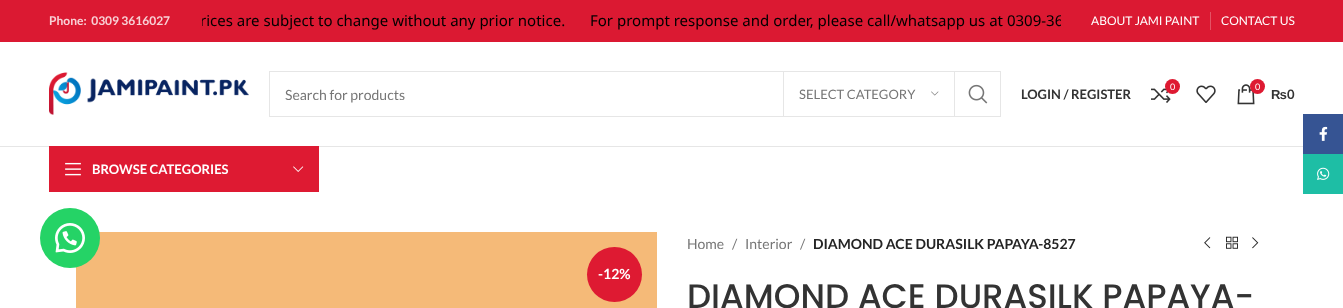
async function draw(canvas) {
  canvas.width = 1343;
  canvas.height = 308;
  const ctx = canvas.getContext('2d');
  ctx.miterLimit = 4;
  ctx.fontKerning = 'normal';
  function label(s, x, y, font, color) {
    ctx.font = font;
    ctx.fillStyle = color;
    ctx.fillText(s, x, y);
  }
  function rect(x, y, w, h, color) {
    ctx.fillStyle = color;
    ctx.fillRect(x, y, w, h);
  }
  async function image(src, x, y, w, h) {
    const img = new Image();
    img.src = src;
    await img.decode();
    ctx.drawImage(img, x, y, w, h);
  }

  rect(0, 0, 1343, 308, '#fff');
  rect(0, 0, 1343, 42, '#db1932');
  label('Phone:  0309 3616027', 49, 25, 'bold 12px Lato', '#f8d1d6');
  ctx.save();
  ctx.beginPath();
  ctx.rect(202, 11, 364, 20);
  ctx.clip();
  label('rices are subject to change without any prior notice.', 200, 26, '15px Noto Sans', '#000');
  ctx.restore();
  ctx.save();
  ctx.beginPath();
  ctx.rect(590, 11, 471, 20);
  ctx.clip();
  label('For prompt response and order, please call/whatsapp us at 0309-36', 590, 26, '15px Noto Sans', '#000');
  ctx.restore();
  label('ABOUT JAMI PAINT', 1091, 25, '12px Lato', '#fff');
  rect(1210, 12, 1, 18, '#e45365');
  label('CONTACT US', 1221, 25, '12px Lato', '#fff');
  rect(0, 146, 1303, 1, '#e6e6e6');
  await image('assets/img1.png', 49, 72, 200, 43);
  ctx.strokeStyle = '#e6e6e6';
  ctx.strokeRect(269.5, 71.5, 731, 45);
  label('Search for products', 285, 100, '14px Lato', '#767676');
  rect(954, 72, 1, 44, '#e6e6e6');
  rect(783, 72, 1, 44, '#e6e6e6');
  label('SELECT CATEGORY', 799, 99, '13px Lato', '#767676');
  await image('assets/img2.png', 931, 91, 8, 5);
  await image('assets/img3.png', 968, 84, 20, 20);
  label('LOGIN / REGISTER', 1021, 99, 'bold 13px Lato', '#333');
  await image('assets/img4.png', 1151, 88, 20, 15);
  ctx.fillStyle = '#de1a32';
  ctx.beginPath();
  ctx.arc(1172.5, 86.5, 7.5, 0, 2 * Math.PI);
  ctx.fill();
  label('0', 1170, 90, '9px Lato', '#fff');
  await image('assets/img5.png', 1196, 85, 20, 18);
  await image('assets/img6.png', 1237, 84, 18, 21);
  ctx.fillStyle = '#de1a32';
  ctx.beginPath();
  ctx.arc(1257.5, 86.5, 7.5, 0, 2 * Math.PI);
  ctx.fill();
  label('0', 1255, 90, '9px Lato', '#fff');
  label('₨', 1271, 99, 'bold 13px Liberation Sans', '#333');
  label('0', 1287, 99, 'bold 13px Lato', '#333');
  rect(49, 146, 270, 46, '#de1a32');
  await image('assets/img7.png', 65, 162, 16, 14);
  label('BROWSE CATEGORIES', 92, 174, 'bold 13px Lato', '#fff');
  await image('assets/img8.png', 293, 166, 11, 6);
  rect(76, 232, 581, 76, '#f5ba78');
  ctx.fillStyle = '#de1a32';
  ctx.beginPath();
  ctx.arc(614.5, 274.5, 27.5, 0, 2 * Math.PI);
  ctx.fill();
  label('-12%', 598, 279, 'bold 14px Lato', '#fff');
  label('Home', 687, 249, '14px Lato', '#767676');
  label('/', 732, 249, '14px Lato', '#767676');
  label('Interior', 745, 249, '14px Lato', '#767676');
  label('/', 800, 249, '14px Lato', '#767676');
  label('DIAMOND ACE DURASILK PAPAYA-8527', 813, 249, 'bold 14px Lato', '#242424');
  await image('assets/img9.png', 1204, 237, 7, 12);
  await image('assets/img10.png', 1226, 236, 12, 13);
  await image('assets/img11.png', 1252, 237, 7, 12);
  label('DIAMOND ACE DURASILK PAPAYA-', 687, 308, '500 34px Poppins', '#333');
  rect(1303, 114, 40, 40, '#365493');
  await image('assets/img12.png', 1319, 126, 9, 15);
  rect(1303, 154, 40, 40, '#1ebea5');
  await image('assets/img13.png', 1317, 167, 13, 13);
  ctx.fillStyle = '#25d366';
  ctx.beginPath();
  ctx.arc(70, 238, 30, 0, 2 * Math.PI);
  ctx.fill();
  await image('assets/img14.png', 55, 223, 30, 30);
}

draw(document.querySelector('canvas'));
